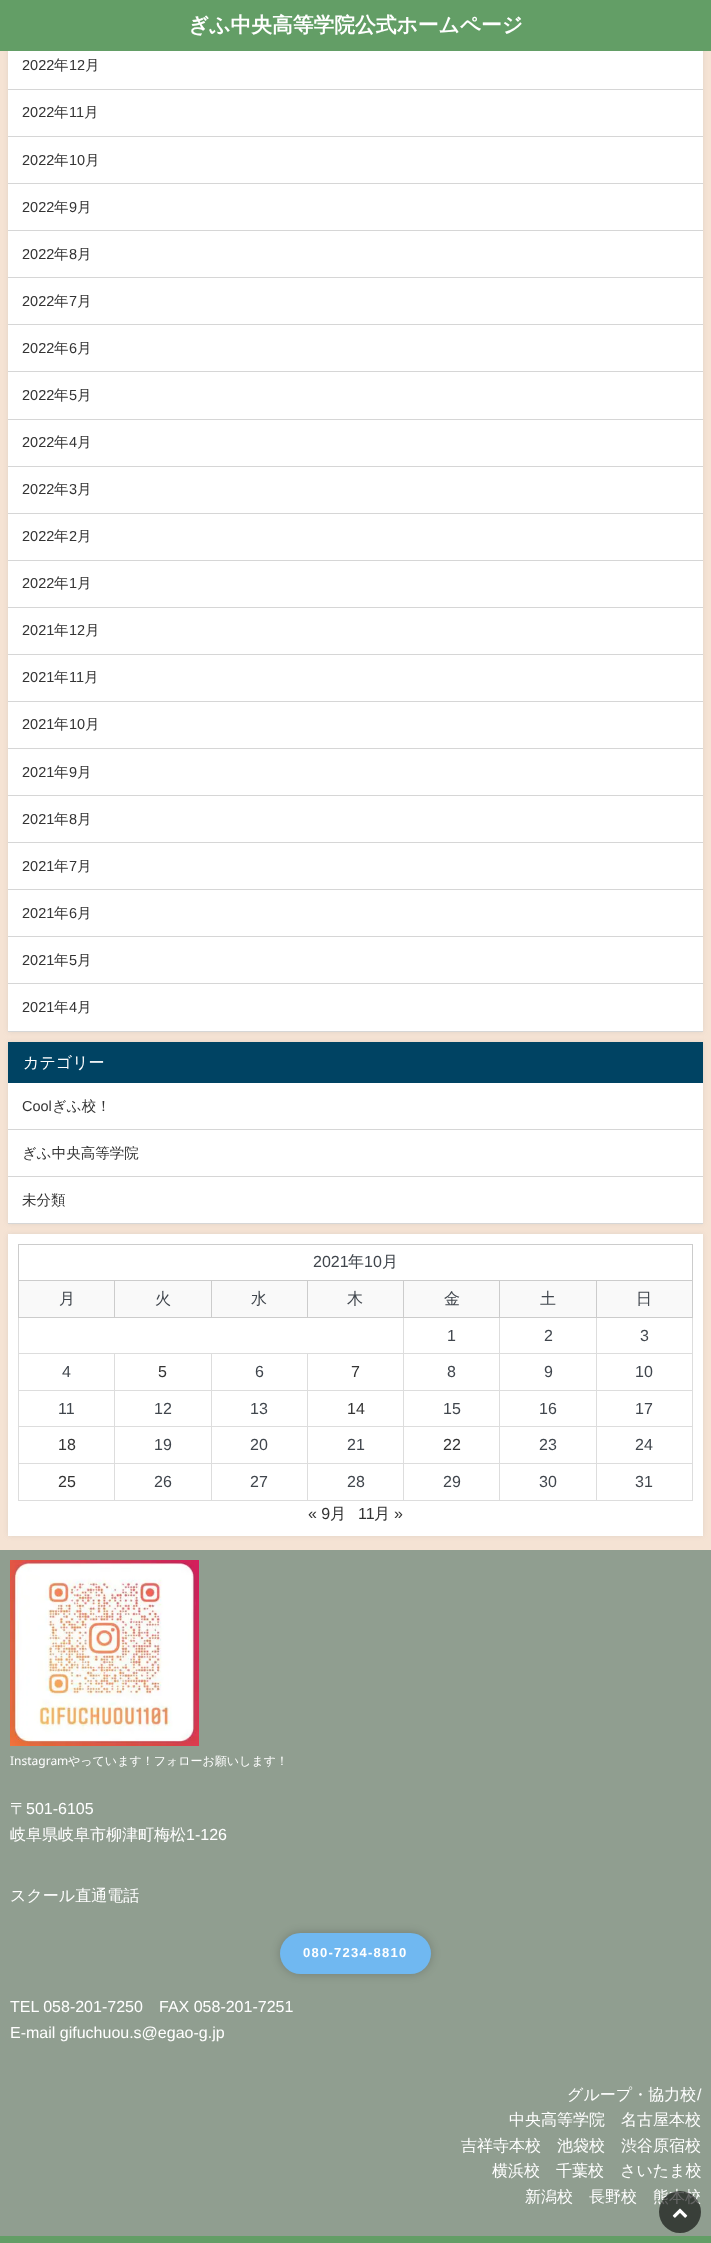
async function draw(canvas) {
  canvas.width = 711;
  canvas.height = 2243;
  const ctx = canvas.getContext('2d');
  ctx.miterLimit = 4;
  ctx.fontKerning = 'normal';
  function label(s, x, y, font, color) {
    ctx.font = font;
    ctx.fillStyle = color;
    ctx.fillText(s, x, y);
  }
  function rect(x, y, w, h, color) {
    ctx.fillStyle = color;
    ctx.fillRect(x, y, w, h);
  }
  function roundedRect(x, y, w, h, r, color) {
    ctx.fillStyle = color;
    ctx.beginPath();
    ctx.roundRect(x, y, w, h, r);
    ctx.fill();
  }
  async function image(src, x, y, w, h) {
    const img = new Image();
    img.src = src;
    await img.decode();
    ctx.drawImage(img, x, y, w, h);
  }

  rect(0, 0, 711, 2243, '#f5e3d4');
  ctx.fillStyle = '#96969633';
  ctx.filter = 'blur(2.5px)';
  ctx.beginPath();
  ctx.rect(8, -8, 695, 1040);
  ctx.fill();
  ctx.filter = 'none';
  rect(0, 0, 711, 51, '#639e66');
  label('ぎふ中央高等学院公式ホームページ', 188, 32, 'bold 20.75px WenQuanYi Zen Hei', '#fff');
  rect(8, 51, 695, 980, '#fff');
  rect(8, 89, 695, 1, '#d6d6d6');
  label('2022', 22, 70, '14.5px Liberation Sans', '#333');
  label('年', 54, 70, '500 14.5px WenQuanYi Zen Hei', '#333');
  label('12', 69, 70, '14.5px Liberation Sans', '#333');
  label('月', 85, 70, '500 14.5px WenQuanYi Zen Hei', '#333');
  rect(8, 136, 695, 1, '#d6d6d6');
  label('2022', 22, 117, '14.5px Liberation Sans', '#333');
  label('年', 54, 117, '500 14.5px WenQuanYi Zen Hei', '#333');
  label('11', 69, 117, '14.5px Liberation Sans', '#333');
  label('月', 84, 117, '500 14.5px WenQuanYi Zen Hei', '#333');
  rect(8, 183, 695, 1, '#d6d6d6');
  label('2022', 22, 165, '14.5px Liberation Sans', '#333');
  label('年', 54, 165, '500 14.5px WenQuanYi Zen Hei', '#333');
  label('10', 69, 165, '14.5px Liberation Sans', '#333');
  label('月', 85, 165, '500 14.5px WenQuanYi Zen Hei', '#333');
  rect(8, 230, 695, 1, '#d6d6d6');
  label('2022', 22, 212, '14.5px Liberation Sans', '#333');
  label('年', 54, 212, '500 14.5px WenQuanYi Zen Hei', '#333');
  label('9', 69, 212, '14.5px Liberation Sans', '#333');
  label('月', 77, 212, '500 14.5px WenQuanYi Zen Hei', '#333');
  rect(8, 277, 695, 1, '#d6d6d6');
  label('2022', 22, 259, '14.5px Liberation Sans', '#333');
  label('年', 54, 259, '500 14.5px WenQuanYi Zen Hei', '#333');
  label('8', 69, 259, '14.5px Liberation Sans', '#333');
  label('月', 77, 259, '500 14.5px WenQuanYi Zen Hei', '#333');
  rect(8, 324, 695, 1, '#d6d6d6');
  label('2022', 22, 306, '14.5px Liberation Sans', '#333');
  label('年', 54, 306, '500 14.5px WenQuanYi Zen Hei', '#333');
  label('7', 69, 306, '14.5px Liberation Sans', '#333');
  label('月', 77, 306, '500 14.5px WenQuanYi Zen Hei', '#333');
  rect(8, 371, 695, 1, '#d6d6d6');
  label('2022', 22, 353, '14.5px Liberation Sans', '#333');
  label('年', 54, 353, '500 14.5px WenQuanYi Zen Hei', '#333');
  label('6', 69, 353, '14.5px Liberation Sans', '#333');
  label('月', 77, 353, '500 14.5px WenQuanYi Zen Hei', '#333');
  rect(8, 419, 695, 1, '#d6d6d6');
  label('2022', 22, 400, '14.5px Liberation Sans', '#333');
  label('年', 54, 400, '500 14.5px WenQuanYi Zen Hei', '#333');
  label('5', 69, 400, '14.5px Liberation Sans', '#333');
  label('月', 77, 400, '500 14.5px WenQuanYi Zen Hei', '#333');
  rect(8, 466, 695, 1, '#d6d6d6');
  label('2022', 22, 447, '14.5px Liberation Sans', '#333');
  label('年', 54, 447, '500 14.5px WenQuanYi Zen Hei', '#333');
  label('4', 69, 447, '14.5px Liberation Sans', '#333');
  label('月', 77, 447, '500 14.5px WenQuanYi Zen Hei', '#333');
  rect(8, 513, 695, 1, '#d6d6d6');
  label('2022', 22, 494, '14.5px Liberation Sans', '#333');
  label('年', 54, 494, '500 14.5px WenQuanYi Zen Hei', '#333');
  label('3', 69, 494, '14.5px Liberation Sans', '#333');
  label('月', 77, 494, '500 14.5px WenQuanYi Zen Hei', '#333');
  rect(8, 560, 695, 1, '#d6d6d6');
  label('2022', 22, 541, '14.5px Liberation Sans', '#333');
  label('年', 54, 541, '500 14.5px WenQuanYi Zen Hei', '#333');
  label('2', 69, 541, '14.5px Liberation Sans', '#333');
  label('月', 77, 541, '500 14.5px WenQuanYi Zen Hei', '#333');
  rect(8, 607, 695, 1, '#d6d6d6');
  label('2022', 22, 588, '14.5px Liberation Sans', '#333');
  label('年', 54, 588, '500 14.5px WenQuanYi Zen Hei', '#333');
  label('1', 69, 588, '14.5px Liberation Sans', '#333');
  label('月', 77, 588, '500 14.5px WenQuanYi Zen Hei', '#333');
  rect(8, 654, 695, 1, '#d6d6d6');
  label('2021', 22, 635, '14.5px Liberation Sans', '#333');
  label('年', 54, 635, '500 14.5px WenQuanYi Zen Hei', '#333');
  label('12', 69, 635, '14.5px Liberation Sans', '#333');
  label('月', 85, 635, '500 14.5px WenQuanYi Zen Hei', '#333');
  rect(8, 701, 695, 1, '#d6d6d6');
  label('2021', 22, 682, '14.5px Liberation Sans', '#333');
  label('年', 54, 682, '500 14.5px WenQuanYi Zen Hei', '#333');
  label('11', 69, 682, '14.5px Liberation Sans', '#333');
  label('月', 84, 682, '500 14.5px WenQuanYi Zen Hei', '#333');
  rect(8, 748, 695, 1, '#d6d6d6');
  label('2021', 22, 729, '14.5px Liberation Sans', '#333');
  label('年', 54, 729, '500 14.5px WenQuanYi Zen Hei', '#333');
  label('10', 69, 729, '14.5px Liberation Sans', '#333');
  label('月', 85, 729, '500 14.5px WenQuanYi Zen Hei', '#333');
  rect(8, 795, 695, 1, '#d6d6d6');
  label('2021', 22, 777, '14.5px Liberation Sans', '#333');
  label('年', 54, 777, '500 14.5px WenQuanYi Zen Hei', '#333');
  label('9', 69, 777, '14.5px Liberation Sans', '#333');
  label('月', 77, 777, '500 14.5px WenQuanYi Zen Hei', '#333');
  rect(8, 842, 695, 1, '#d6d6d6');
  label('2021', 22, 824, '14.5px Liberation Sans', '#333');
  label('年', 54, 824, '500 14.5px WenQuanYi Zen Hei', '#333');
  label('8', 69, 824, '14.5px Liberation Sans', '#333');
  label('月', 77, 824, '500 14.5px WenQuanYi Zen Hei', '#333');
  rect(8, 889, 695, 1, '#d6d6d6');
  label('2021', 22, 871, '14.5px Liberation Sans', '#333');
  label('年', 54, 871, '500 14.5px WenQuanYi Zen Hei', '#333');
  label('7', 69, 871, '14.5px Liberation Sans', '#333');
  label('月', 77, 871, '500 14.5px WenQuanYi Zen Hei', '#333');
  rect(8, 936, 695, 1, '#d6d6d6');
  label('2021', 22, 918, '14.5px Liberation Sans', '#333');
  label('年', 54, 918, '500 14.5px WenQuanYi Zen Hei', '#333');
  label('6', 69, 918, '14.5px Liberation Sans', '#333');
  label('月', 77, 918, '500 14.5px WenQuanYi Zen Hei', '#333');
  rect(8, 983, 695, 1, '#d6d6d6');
  label('2021', 22, 965, '14.5px Liberation Sans', '#333');
  label('年', 54, 965, '500 14.5px WenQuanYi Zen Hei', '#333');
  label('5', 69, 965, '14.5px Liberation Sans', '#333');
  label('月', 77, 965, '500 14.5px WenQuanYi Zen Hei', '#333');
  rect(8, 1031, 695, 1, '#d6d6d6');
  label('2021', 22, 1012, '14.5px Liberation Sans', '#333');
  label('年', 54, 1012, '500 14.5px WenQuanYi Zen Hei', '#333');
  label('4', 69, 1012, '14.5px Liberation Sans', '#333');
  label('月', 77, 1012, '500 14.5px WenQuanYi Zen Hei', '#333');
  ctx.fillStyle = '#96969633';
  ctx.filter = 'blur(2.5px)';
  ctx.beginPath();
  ctx.rect(8, 1042, 695, 182);
  ctx.fill();
  ctx.filter = 'none';
  rect(8, 1083, 695, 140, '#fff');
  rect(8, 1042, 695, 41, '#004363');
  label('カテゴリー', 23, 1068, '500 16px WenQuanYi Zen Hei', '#fff');
  rect(8, 1129, 695, 1, '#d6d6d6');
  label('Cool', 22, 1111, '14.5px Liberation Sans', '#333');
  label('ぎふ校！', 52, 1111, '500 14.5px WenQuanYi Zen Hei', '#333');
  rect(8, 1176, 695, 1, '#d6d6d6');
  label('ぎふ中央高等学院', 22, 1158, '500 14.5px WenQuanYi Zen Hei', '#333');
  rect(8, 1223, 695, 1, '#d6d6d6');
  label('未分類', 22, 1205, '500 14.5px WenQuanYi Zen Hei', '#333');
  ctx.fillStyle = '#96969633';
  ctx.filter = 'blur(2.5px)';
  ctx.beginPath();
  ctx.rect(8, 1234, 695, 302);
  ctx.fill();
  ctx.filter = 'none';
  rect(8, 1234, 695, 302, '#fff');
  rect(18, 1244, 675, 1, '#ccc');
  rect(692, 1244, 1, 36, '#ccc');
  rect(18, 1244, 1, 73, '#ccc');
  label('2021', 313, 1267, '16px Liberation Sans', '#40464d');
  label('年', 348, 1267, '500 16px WenQuanYi Zen Hei', '#40464d');
  label('10', 364, 1267, '16px Liberation Sans', '#40464d');
  label('月', 382, 1267, '500 16px WenQuanYi Zen Hei', '#40464d');
  rect(19, 1281, 95, 36, '#f9f9f9');
  rect(596, 1280, 97, 1, '#ccc');
  rect(596, 1353, 97, 1, '#ddd');
  rect(596, 1390, 97, 1, '#ddd');
  rect(596, 1426, 97, 1, '#ddd');
  rect(596, 1463, 97, 1, '#ddd');
  rect(692, 1463, 1, 38, '#ddd');
  rect(692, 1426, 1, 38, '#ddd');
  rect(692, 1390, 1, 37, '#ddd');
  rect(692, 1317, 1, 74, '#ddd');
  rect(692, 1280, 1, 38, '#ccc');
  rect(596, 1500, 97, 1, '#ddd');
  rect(596, 1463, 1, 38, '#ddd');
  rect(499, 1463, 98, 1, '#ddd');
  rect(596, 1426, 1, 38, '#ddd');
  rect(499, 1426, 98, 1, '#ddd');
  rect(596, 1390, 1, 37, '#ddd');
  rect(499, 1390, 98, 1, '#ddd');
  rect(596, 1353, 1, 38, '#ddd');
  rect(499, 1353, 98, 1, '#ddd');
  rect(596, 1317, 1, 37, '#ddd');
  rect(596, 1317, 97, 1, '#ccc');
  rect(596, 1280, 1, 38, '#ccc');
  rect(499, 1280, 98, 1, '#ccc');
  rect(499, 1500, 98, 1, '#ddd');
  rect(499, 1463, 1, 38, '#ddd');
  rect(403, 1463, 97, 1, '#ddd');
  rect(499, 1426, 1, 38, '#ddd');
  rect(403, 1426, 97, 1, '#ddd');
  rect(499, 1390, 1, 37, '#ddd');
  rect(403, 1390, 97, 1, '#ddd');
  rect(499, 1353, 1, 38, '#ddd');
  rect(403, 1353, 97, 1, '#ddd');
  rect(499, 1317, 1, 37, '#ddd');
  rect(499, 1317, 98, 1, '#ccc');
  rect(499, 1280, 1, 38, '#ccc');
  rect(403, 1280, 97, 1, '#ccc');
  rect(403, 1500, 97, 1, '#ddd');
  rect(403, 1463, 1, 38, '#ddd');
  rect(307, 1463, 97, 1, '#ddd');
  rect(403, 1426, 1, 38, '#ddd');
  rect(307, 1426, 97, 1, '#ddd');
  rect(403, 1390, 1, 37, '#ddd');
  rect(307, 1390, 97, 1, '#ddd');
  rect(403, 1353, 1, 38, '#ddd');
  rect(307, 1353, 97, 1, '#ddd');
  rect(403, 1317, 1, 37, '#ddd');
  rect(403, 1317, 97, 1, '#ccc');
  rect(403, 1280, 1, 38, '#ccc');
  rect(307, 1280, 97, 1, '#ccc');
  rect(307, 1317, 97, 1, '#ccc');
  rect(307, 1280, 1, 38, '#ccc');
  rect(211, 1280, 97, 1, '#ccc');
  rect(211, 1317, 97, 1, '#ccc');
  rect(211, 1280, 1, 38, '#ccc');
  rect(114, 1280, 98, 1, '#ccc');
  rect(114, 1317, 98, 1, '#ccc');
  rect(114, 1280, 1, 38, '#ccc');
  rect(18, 1280, 97, 1, '#ccc');
  rect(307, 1500, 97, 1, '#ddd');
  rect(307, 1463, 1, 38, '#ddd');
  rect(211, 1463, 97, 1, '#ddd');
  rect(307, 1426, 1, 38, '#ddd');
  rect(211, 1426, 97, 1, '#ddd');
  rect(307, 1390, 1, 37, '#ddd');
  rect(211, 1390, 97, 1, '#ddd');
  rect(307, 1353, 1, 38, '#ddd');
  rect(211, 1353, 97, 1, '#ddd');
  rect(211, 1500, 97, 1, '#ddd');
  rect(211, 1463, 1, 38, '#ddd');
  rect(114, 1463, 98, 1, '#ddd');
  rect(211, 1426, 1, 38, '#ddd');
  rect(114, 1426, 98, 1, '#ddd');
  rect(211, 1390, 1, 37, '#ddd');
  rect(114, 1390, 98, 1, '#ddd');
  rect(211, 1353, 1, 38, '#ddd');
  rect(114, 1353, 98, 1, '#ddd');
  rect(114, 1500, 98, 1, '#ddd');
  rect(114, 1463, 1, 38, '#ddd');
  rect(18, 1463, 97, 1, '#ddd');
  rect(114, 1426, 1, 38, '#ddd');
  rect(18, 1426, 97, 1, '#ddd');
  rect(114, 1390, 1, 37, '#ddd');
  rect(18, 1390, 97, 1, '#ddd');
  rect(114, 1353, 1, 38, '#ddd');
  rect(18, 1353, 97, 1, '#ddd');
  rect(18, 1500, 97, 1, '#ddd');
  rect(18, 1463, 1, 38, '#ddd');
  rect(18, 1426, 1, 38, '#ddd');
  rect(18, 1390, 1, 37, '#ddd');
  rect(18, 1317, 1, 74, '#ddd');
  rect(18, 1317, 97, 1, '#ccc');
  label('月', 59, 1304, '500 16px WenQuanYi Zen Hei', '#40464d');
  rect(115, 1281, 96, 36, '#f9f9f9');
  label('火', 155, 1304, '500 16px WenQuanYi Zen Hei', '#40464d');
  rect(212, 1281, 95, 36, '#f9f9f9');
  label('水', 251, 1304, '500 16px WenQuanYi Zen Hei', '#40464d');
  rect(308, 1281, 95, 36, '#f9f9f9');
  label('木', 347, 1304, '500 16px WenQuanYi Zen Hei', '#40464d');
  rect(404, 1281, 95, 36, '#f9f9f9');
  label('金', 444, 1304, '500 16px WenQuanYi Zen Hei', '#40464d');
  rect(500, 1281, 96, 36, '#f9f9f9');
  label('土', 540, 1304, '500 16px WenQuanYi Zen Hei', '#40464d');
  rect(597, 1281, 95, 36, '#f9f9f9');
  label('日', 636, 1304, '500 16px WenQuanYi Zen Hei', '#40464d');
  label('1', 447, 1341, '16px Liberation Sans', '#40464d');
  label('2', 544, 1341, '16px Liberation Sans', '#40464d');
  label('3', 640, 1341, '16px Liberation Sans', '#40464d');
  label('4', 62, 1377, '16px Liberation Sans', '#40464d');
  label('5', 158, 1377, '16px Liberation Sans', '#333');
  label('6', 255, 1377, '16px Liberation Sans', '#40464d');
  label('7', 351, 1377, '16px Liberation Sans', '#333');
  label('8', 447, 1377, '16px Liberation Sans', '#40464d');
  label('9', 544, 1377, '16px Liberation Sans', '#40464d');
  label('10', 635, 1377, '16px Liberation Sans', '#40464d');
  label('11', 58, 1414, '16px Liberation Sans', '#40464d');
  label('12', 154, 1414, '16px Liberation Sans', '#40464d');
  label('13', 250, 1414, '16px Liberation Sans', '#40464d');
  label('14', 347, 1414, '16px Liberation Sans', '#333');
  label('15', 443, 1414, '16px Liberation Sans', '#40464d');
  label('16', 539, 1414, '16px Liberation Sans', '#40464d');
  label('17', 635, 1414, '16px Liberation Sans', '#40464d');
  label('18', 58, 1450, '16px Liberation Sans', '#333');
  label('19', 154, 1450, '16px Liberation Sans', '#40464d');
  label('20', 250, 1450, '16px Liberation Sans', '#40464d');
  label('21', 347, 1450, '16px Liberation Sans', '#40464d');
  label('22', 443, 1450, '16px Liberation Sans', '#333');
  label('23', 539, 1450, '16px Liberation Sans', '#40464d');
  label('24', 635, 1450, '16px Liberation Sans', '#40464d');
  label('25', 58, 1487, '16px Liberation Sans', '#333');
  label('26', 154, 1487, '16px Liberation Sans', '#40464d');
  label('27', 250, 1487, '16px Liberation Sans', '#40464d');
  label('28', 347, 1487, '16px Liberation Sans', '#40464d');
  label('29', 443, 1487, '16px Liberation Sans', '#40464d');
  label('30', 539, 1487, '16px Liberation Sans', '#40464d');
  label('31', 635, 1487, '16px Liberation Sans', '#40464d');
  label('« 9', 308, 1519, '16px Liberation Sans', '#333');
  label('月', 330, 1519, '500 16px WenQuanYi Zen Hei', '#333');
  label('11', 358, 1519, '16px Liberation Sans', '#333');
  label('月', 374, 1519, '500 16px WenQuanYi Zen Hei', '#333');
  label('»', 394, 1519, '16px Liberation Sans', '#333');
  rect(0, 1550, 711, 686, '#909e90');
  await image('assets/img1.png', 10, 1560, 189, 186);
  label('Instagram', 10, 1765, '12px Noto Sans', '#fff');
  label('やっています！フォローお願いします！', 68, 1765, '500 12px WenQuanYi Zen Hei', '#fff');
  label('〒', 10, 1814, '500 16px WenQuanYi Zen Hei', '#fff');
  label('501-6105', 26, 1814, '16px Liberation Sans', '#fff');
  label('岐阜県岐阜市柳津町梅松', 10, 1840, '500 16px WenQuanYi Zen Hei', '#fff');
  label('1-126', 186, 1840, '16px Liberation Sans', '#fff');
  label('スクール直通電話', 10, 1901, '500 16px WenQuanYi Zen Hei', '#fff');
  ctx.fillStyle = '#00000033';
  ctx.filter = 'blur(5px)';
  ctx.beginPath();
  ctx.roundRect(280, 1933, 151, 41, 20.5);
  ctx.fill();
  ctx.filter = 'none';
  roundedRect(280, 1933, 151, 41, 20.5, '#70b8f1');
  ctx.letterSpacing = '1.25px';
  label('080-7234-8810', 303, 1957, 'bold 13px Liberation Sans', '#fff');
  ctx.letterSpacing = '0px';
  label('TEL 058-201-7250', 10, 2012, '16px Liberation Sans', '#fff');
  label('FAX 058-201-7251', 159, 2012, '16px Liberation Sans', '#fff');
  label('E-mail gifuchuou.s@egao-g.jp', 10, 2038, '16px Liberation Sans', '#fff');
  label('グループ・協力校', 567, 2100, '500 16px WenQuanYi Zen Hei', '#fff');
  label('/', 697, 2100, '16px Liberation Sans', '#fff');
  label('中央高等学院　名古屋本校', 509, 2125, '500 16px WenQuanYi Zen Hei', '#fff');
  label('吉祥寺本校　池袋校　渋谷原宿校', 461, 2151, '500 16px WenQuanYi Zen Hei', '#fff');
  label('横浜校　千葉校　さいたま校', 492, 2176, '500 16px WenQuanYi Zen Hei', '#fff');
  label('新潟校　長野校　熊本校', 525, 2202, '500 16px WenQuanYi Zen Hei', '#fff');
  ctx.fillStyle = '#00000099';
  ctx.beginPath();
  ctx.arc(680, 2212, 21, 0, 2 * Math.PI);
  ctx.fill();
  await image('assets/img2.png', 672, 2208, 16, 10);
  rect(0, 2236, 711, 7, '#639e66');
}

draw(document.querySelector('canvas'));
